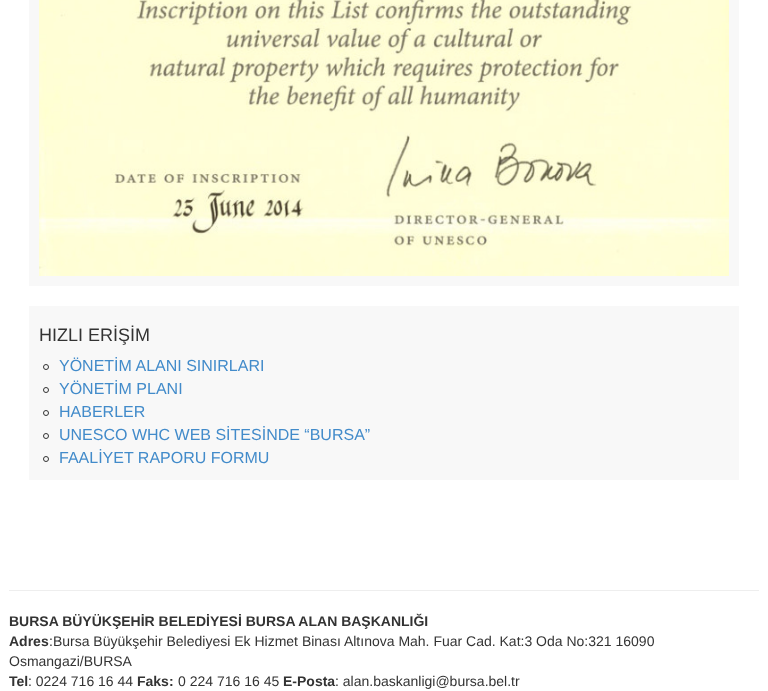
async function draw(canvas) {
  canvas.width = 768;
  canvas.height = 691;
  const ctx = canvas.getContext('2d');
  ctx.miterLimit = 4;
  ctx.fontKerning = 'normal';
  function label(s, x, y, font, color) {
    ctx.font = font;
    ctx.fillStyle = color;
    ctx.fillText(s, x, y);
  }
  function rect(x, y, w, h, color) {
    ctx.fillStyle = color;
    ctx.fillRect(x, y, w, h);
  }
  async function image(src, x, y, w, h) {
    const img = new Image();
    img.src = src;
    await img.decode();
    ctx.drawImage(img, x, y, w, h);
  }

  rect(0, 0, 768, 691, '#fff');
  rect(29, 0, 710, 286, '#f8f8f8');
  await image('assets/img1.png', 39, 0, 690, 276);
  rect(29, 306, 710, 174, '#f8f8f8');
  label('HIZLI ERİŞİM', 39, 341, '18px Liberation Sans', '#333');
  ctx.beginPath();
  ctx.arc(46, 367, 2.5, 0, 2 * Math.PI);
  ctx.strokeStyle = '#333';
  ctx.stroke();
  label('YÖNETİM ALANI SINIRLARI', 59, 371, '16px Liberation Sans', '#428bca');
  ctx.beginPath();
  ctx.arc(46, 390, 2.5, 0, 2 * Math.PI);
  ctx.stroke();
  label('YÖNETİM PLANI', 59, 394, '16px Liberation Sans', '#428bca');
  ctx.beginPath();
  ctx.arc(46, 413, 2.5, 0, 2 * Math.PI);
  ctx.stroke();
  label('HABERLER', 59, 417, '16px Liberation Sans', '#428bca');
  ctx.beginPath();
  ctx.arc(46, 436, 2.5, 0, 2 * Math.PI);
  ctx.stroke();
  label('UNESCO WHC WEB SİTESİNDE “BURSA”', 59, 440, '16px Liberation Sans', '#428bca');
  ctx.beginPath();
  ctx.arc(46, 459, 2.5, 0, 2 * Math.PI);
  ctx.stroke();
  label('FAALİYET RAPORU FORMU', 59, 463, '16px Liberation Sans', '#428bca');
  rect(9, 590, 750, 1, '#eee');
  label('BURSA BÜYÜKŞEHİR BELEDİYESİ BURSA ALAN BAŞKANLIĞI', 9, 626, 'bold 14px Liberation Sans', '#333');
  label('Adres', 9, 646, 'bold 14px Liberation Sans', '#333');
  label(':Bursa Büyükşehir Belediyesi Ek Hizmet Binası Altınova Mah. Fuar Cad. Kat:3 Oda No:321 16090', 49, 646, '14px Liberation Sans', '#333');
  label('Osmangazi/BURSA', 9, 666, '14px Liberation Sans', '#333');
  label('Tel', 9, 686, 'bold 14px Liberation Sans', '#333');
  label(': 0224 716 16 44', 28, 686, '14px Liberation Sans', '#333');
  label('Faks:', 137, 686, 'bold 14px Liberation Sans', '#333');
  label('0 224 716 16 45', 178, 686, '14px Liberation Sans', '#333');
  label('E-Posta', 283, 686, 'bold 14px Liberation Sans', '#333');
  label(': alan.baskanligi@bursa.bel.tr', 335, 686, '14px Liberation Sans', '#333');
}

draw(document.querySelector('canvas'));
